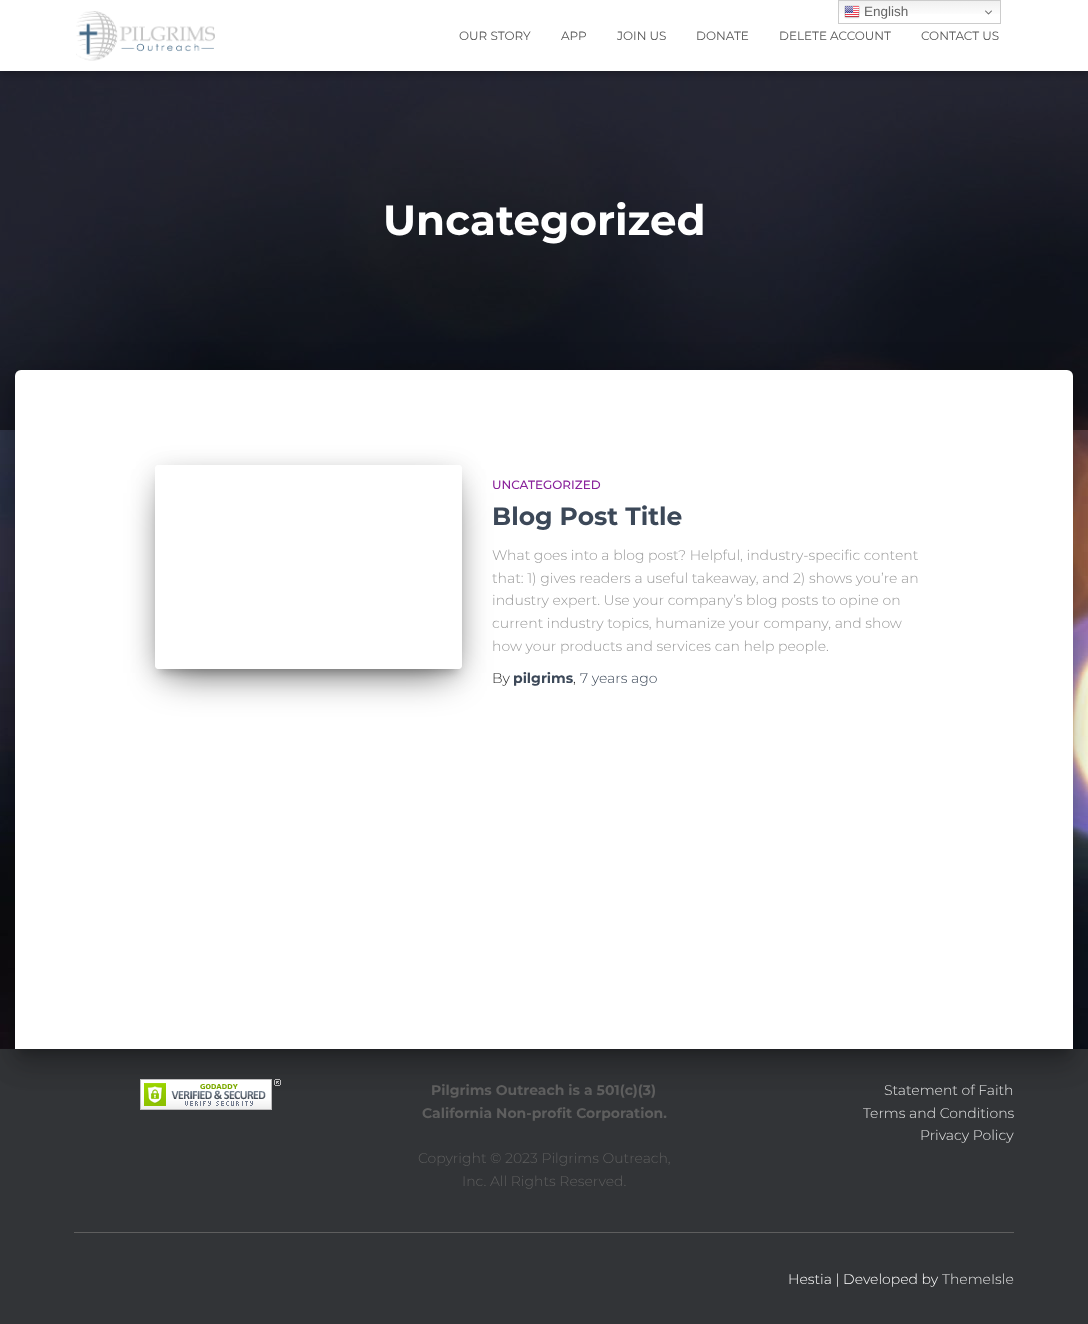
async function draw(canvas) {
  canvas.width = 1088;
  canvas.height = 1324;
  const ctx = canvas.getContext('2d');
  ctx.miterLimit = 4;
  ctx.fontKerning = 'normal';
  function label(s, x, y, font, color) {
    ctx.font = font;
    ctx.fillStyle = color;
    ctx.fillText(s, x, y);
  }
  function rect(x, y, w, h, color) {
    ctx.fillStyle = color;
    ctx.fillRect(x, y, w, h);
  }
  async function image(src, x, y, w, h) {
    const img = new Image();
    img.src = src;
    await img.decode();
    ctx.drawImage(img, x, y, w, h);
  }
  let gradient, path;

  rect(0, 0, 1088, 1324, '#fff');
  await image('assets/img1.png', 0, 71, 1088, 978);
  rect(0, 71, 1088, 359, '#00000080');
  ctx.fillStyle = '#0000001a';
  ctx.filter = 'blur(2.5px)';
  ctx.beginPath();
  ctx.rect(2, 6, 1084, 67);
  ctx.fill();
  ctx.filter = 'none';
  ctx.fillStyle = '#0000001f';
  ctx.filter = 'blur(5px)';
  ctx.beginPath();
  ctx.rect(0, 1, 1088, 71);
  ctx.fill();
  ctx.filter = 'none';
  ctx.fillStyle = '#0000006b';
  ctx.filter = 'blur(5px)';
  ctx.beginPath();
  ctx.rect(6, 7, 1076, 59);
  ctx.fill();
  ctx.filter = 'none';
  rect(0, 0, 1088, 71, '#fff');
  gradient = ctx.createLinearGradient(920, 0, 920, 24);
  gradient.addColorStop(0, '#efefef');
  gradient.addColorStop(0.7, '#fff');
  ctx.fillStyle = gradient;
  ctx.fillRect(839, 1, 161, 13);
  ctx.strokeStyle = '#ccc';
  ctx.strokeRect(838.5, 0.5, 162, 23);
  await image('assets/img2.png', 844, 5, 16, 14);
  label('English', 864, 16, '13.5px Liberation Sans', '#666');
  await image('assets/img3.png', 985, 10, 7, 5);
  await image('assets/img4.png', 76, 11, 139, 50);
  label('OUR STORY', 459, 40, '12px Montserrat', '#555');
  label('APP', 561, 40, '12px Montserrat', '#555');
  label('JOIN US', 617, 40, '12px Montserrat', '#555');
  label('DONATE', 696, 40, '12px Montserrat', '#555');
  label('DELETE ACCOUNT', 779, 40, '12px Montserrat', '#555');
  label('CONTACT US', 921, 40, '12px Montserrat', '#555');
  label('Uncategorized', 383, 235, 'bold 42px Montserrat', '#fff');
  rect(0, 1049, 1088, 275, '#323437');
  ctx.fillStyle = '#00000033';
  ctx.filter = 'blur(5px)';
  ctx.beginPath();
  ctx.roundRect(20, 383, 1048, 669, 1);
  ctx.fill();
  ctx.filter = 'none';
  ctx.fillStyle = '#0000001f';
  ctx.filter = 'blur(15px)';
  ctx.beginPath();
  ctx.roundRect(10, 371, 1068, 689, 11);
  ctx.fill();
  ctx.filter = 'none';
  ctx.fillStyle = '#00000024';
  ctx.filter = 'blur(12px)';
  ctx.beginPath();
  ctx.roundRect(13, 384, 1062, 683, 8);
  ctx.fill();
  ctx.filter = 'none';
  ctx.fillStyle = '#fff';
  ctx.beginPath();
  ctx.roundRect(15, 370, 1058, 679, [6, 6, 0, 0]);
  ctx.fill();
  ctx.save();
  path = new Path2D('M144 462H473V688H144ZM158 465H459C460.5 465 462 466.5 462 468V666C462 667.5 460.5 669 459 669H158C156.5 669 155 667.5 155 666V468C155 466.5 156.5 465 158 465Z');
  ctx.clip(path, 'evenodd');
  ctx.fillStyle = '#00000033';
  ctx.filter = 'blur(5px)';
  ctx.beginPath();
  ctx.rect(160, 478, 297, 194);
  ctx.fill();
  ctx.filter = 'none';
  ctx.restore();
  ctx.save();
  path = new Path2D('M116 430H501V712H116ZM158 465H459C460.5 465 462 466.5 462 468V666C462 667.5 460.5 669 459 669H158C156.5 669 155 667.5 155 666V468C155 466.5 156.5 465 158 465Z');
  ctx.clip(path, 'evenodd');
  ctx.fillStyle = '#0000001f';
  ctx.filter = 'blur(12.5px)';
  ctx.beginPath();
  ctx.roundRect(155, 469, 307, 204, 3);
  ctx.fill();
  ctx.filter = 'none';
  ctx.restore();
  ctx.save();
  path = new Path2D('M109 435H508V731H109ZM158 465H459C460.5 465 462 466.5 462 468V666C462 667.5 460.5 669 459 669H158C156.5 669 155 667.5 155 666V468C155 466.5 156.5 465 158 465Z');
  ctx.clip(path, 'evenodd');
  ctx.fillStyle = '#0000008f';
  ctx.filter = 'blur(19px)';
  ctx.beginPath();
  ctx.rect(167, 493, 283, 180);
  ctx.fill();
  ctx.filter = 'none';
  ctx.restore();
  label('UNCATEGORIZED', 492, 489, '500 12px Montserrat', '#89229b');
  label('Blog Post Title', 492, 525, 'bold 25px Montserrat', '#3c4858');
  label('What goes into a blog post? Helpful, industry-specific content', 492, 560, '300 14px Montserrat', '#999');
  label('that: 1) gives readers a useful takeaway, and 2) shows you’re an', 492, 583, '300 14px Montserrat', '#999');
  label('industry expert. Use your company’s blog posts to opine on', 492, 605, '300 14px Montserrat', '#999');
  label('current industry topics, humanize your company, and show', 492, 628, '300 14px Montserrat', '#999');
  label('how your products and services can help people.', 492, 651, '300 14px Montserrat', '#999');
  label('By', 492, 683, '300 14px Montserrat', '#212121');
  label('pilgrims', 513, 683, 'bold 14px Montserrat', '#3c4858');
  label(',', 573, 683, '300 14px Montserrat', '#212121');
  label('7 years ago', 580, 683, '300 14px Montserrat', '#3c4858');
  await image('assets/img5.png', 140, 1079, 141, 31);
  label('Pilgrims Outreach is a 501(c)(3)', 431, 1095, 'bold 14px Montserrat', '#5e5e5e');
  label('California Non-profit Corporation.', 422, 1118, 'bold 14px Montserrat', '#5e5e5e');
  label('Copyright © 2023 Pilgrims Outreach,', 418, 1163, '300 14px Montserrat', '#5e5e5e');
  label('Inc. All Rights Reserved.', 462, 1186, '300 14px Montserrat', '#5e5e5e');
  label('Statement of Faith', 884, 1095, '300 14px Montserrat', '#e2e3e3');
  label('Terms and Conditions', 863, 1118, '300 14px Montserrat', '#e2e3e3');
  label('Privacy Policy', 920, 1140, '300 14px Montserrat', '#e2e3e3');
  rect(74, 1232, 940, 1, '#5e5e5e');
  label('Hestia | Developed by', 788, 1284, '300 14px Montserrat', '#fff');
  label('ThemeIsle', 942, 1284, '300 14px Montserrat', '#e2e3e3');
}

draw(document.querySelector('canvas'));
